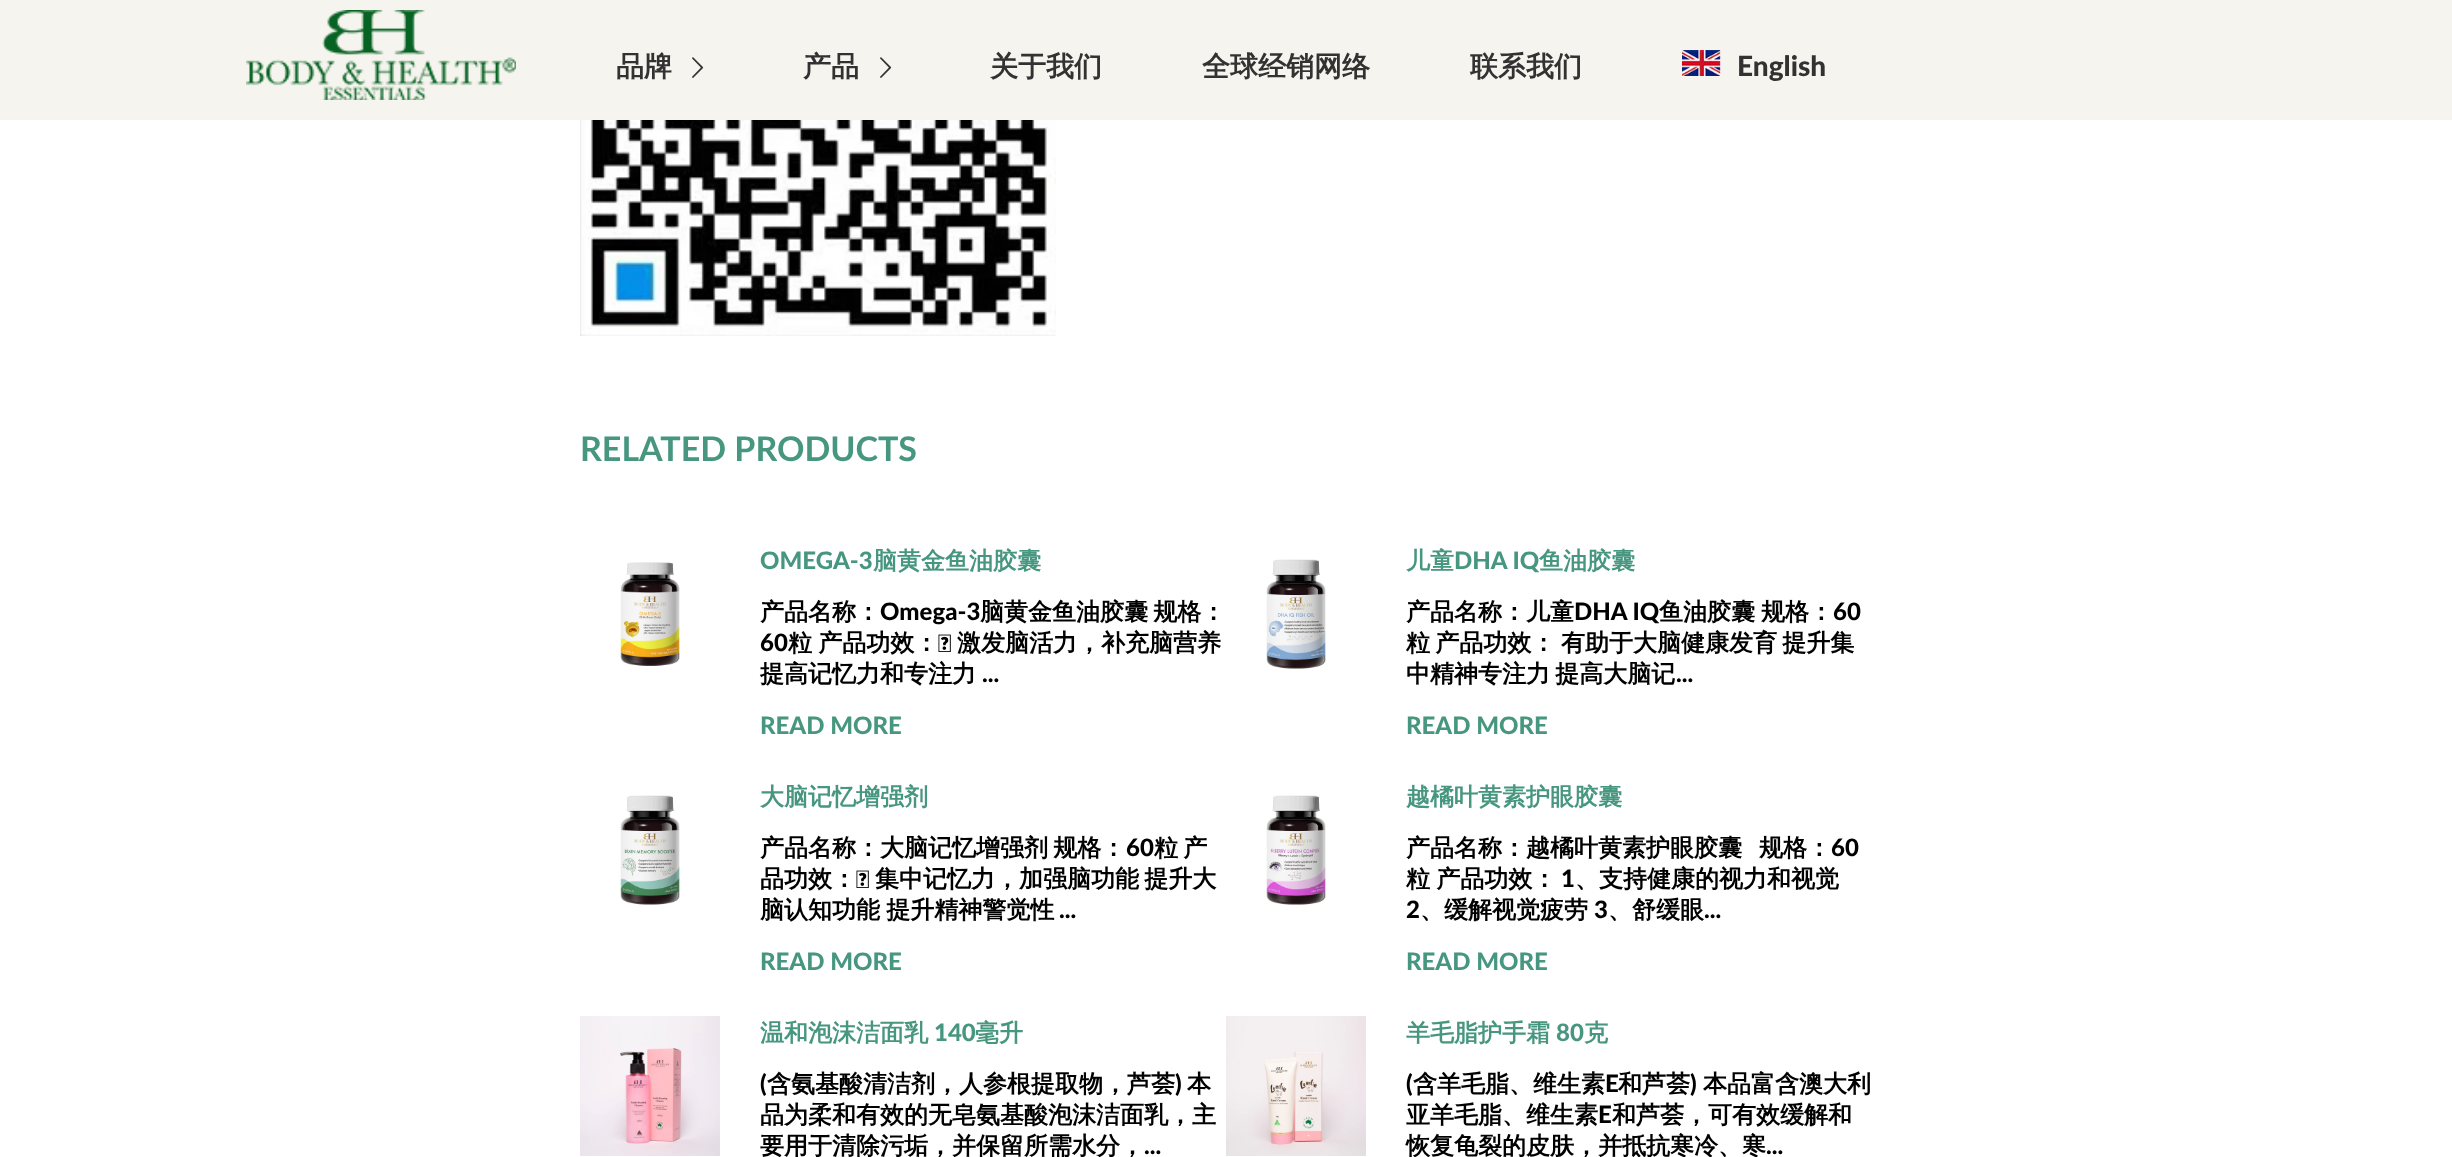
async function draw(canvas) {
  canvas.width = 2452;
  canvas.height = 1157;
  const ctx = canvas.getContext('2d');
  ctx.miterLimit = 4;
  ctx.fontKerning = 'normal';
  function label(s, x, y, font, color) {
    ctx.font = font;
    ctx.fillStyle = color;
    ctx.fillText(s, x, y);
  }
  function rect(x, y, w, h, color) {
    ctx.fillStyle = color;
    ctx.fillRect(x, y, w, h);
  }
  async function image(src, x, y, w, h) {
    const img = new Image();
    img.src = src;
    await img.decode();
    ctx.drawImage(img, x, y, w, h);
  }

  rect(0, 0, 2452, 1157, '#fff');
  rect(0, 0, 2452, 120, '#f6f4ee');
  await image('assets/img1.png', 246, 10, 270, 90);
  label('品牌', 616, 76, 'bold 28px WenQuanYi Zen Hei', '#323232');
  await image('assets/img2.png', 692, 57, 12, 21);
  label('产品', 803, 76, 'bold 28px WenQuanYi Zen Hei', '#323232');
  await image('assets/img2.png', 880, 57, 12, 21);
  label('关于我们', 990, 76, 'bold 28px WenQuanYi Zen Hei', '#323232');
  label('全球经销网络', 1202, 76, 'bold 28px WenQuanYi Zen Hei', '#323232');
  label('联系我们', 1470, 76, 'bold 28px WenQuanYi Zen Hei', '#323232');
  await image('assets/img3.png', 1682, 50, 39, 26);
  label('English', 1737, 76, '900 28px Lato', '#323232');
  await image('assets/img4.png', 580, 120, 476, 216);
  label('RELATED PRODUCTS', 580, 461, 'bold 34px Lato', '#47967f');
  await image('assets/img5.png', 620, 562, 60, 104);
  label('OMEGA-3', 760, 569, '900 24px Lato', '#47967f');
  label('脑黄金鱼油胶囊', 873, 569, 'bold 24px WenQuanYi Zen Hei', '#47967f');
  label('产品名称：', 760, 620, 'bold 24px WenQuanYi Zen Hei', '#000');
  label('Omega-3', 880, 620, '900 24px Lato', '#000');
  ctx.wordSpacing = '-2px';
  label('脑黄金鱼油胶囊 规格：', 980, 620, 'bold 24px WenQuanYi Zen Hei', '#000');
  ctx.wordSpacing = '0px';
  label('60', 760, 651, '900 24px Lato', '#000');
  ctx.wordSpacing = '-1px';
  label('粒 产品功效：', 788, 651, 'bold 24px WenQuanYi Zen Hei', '#000');
  await image('assets/img6.png', 938, 634, 13, 18);
  ctx.wordSpacing = '0px';
  label('激发脑活力，补充脑营养', 957, 651, 'bold 24px WenQuanYi Zen Hei', '#000');
  label('提高记忆力和专注力', 760, 682, 'bold 24px WenQuanYi Zen Hei', '#000');
  label('...', 982, 682, '900 24px Lato', '#000');
  label('READ MORE', 760, 734, '900 24px Lato', '#47967f');
  await image('assets/img7.png', 1266, 559, 60, 110);
  label('儿童', 1406, 569, 'bold 24px WenQuanYi Zen Hei', '#47967f');
  label('DHA IQ', 1454, 569, '900 24px Lato', '#47967f');
  label('鱼油胶囊', 1539, 569, 'bold 24px WenQuanYi Zen Hei', '#47967f');
  label('产品名称：儿童', 1406, 620, 'bold 24px WenQuanYi Zen Hei', '#000');
  label('DHA IQ', 1574, 620, '900 24px Lato', '#000');
  label('鱼油胶囊', 1659, 620, 'bold 24px WenQuanYi Zen Hei', '#000');
  label('规格：', 1761, 620, 'bold 24px WenQuanYi Zen Hei', '#000');
  label('60', 1833, 620, '900 24px Lato', '#000');
  ctx.wordSpacing = '-2px';
  label('粒 产品功效：', 1406, 651, 'bold 24px WenQuanYi Zen Hei', '#000');
  label('有助于大脑健康发育 提升集', 1561, 651, 'bold 24px WenQuanYi Zen Hei', '#000');
  label('中精神专注力 提高大脑记', 1406, 682, 'bold 24px WenQuanYi Zen Hei', '#000');
  ctx.wordSpacing = '0px';
  label('...', 1676, 682, '900 24px Lato', '#000');
  label('READ MORE', 1406, 734, '900 24px Lato', '#47967f');
  await image('assets/img8.png', 620, 795, 60, 110);
  label('大脑记忆增强剂', 760, 805, 'bold 24px WenQuanYi Zen Hei', '#47967f');
  ctx.wordSpacing = '-2px';
  label('产品名称：大脑记忆增强剂 规格：', 760, 856, 'bold 24px WenQuanYi Zen Hei', '#000');
  ctx.wordSpacing = '0px';
  label('60', 1126, 856, '900 24px Lato', '#000');
  ctx.wordSpacing = '-2px';
  label('粒 产', 1154, 856, 'bold 24px WenQuanYi Zen Hei', '#000');
  ctx.wordSpacing = '0px';
  label('品功效：', 760, 887, 'bold 24px WenQuanYi Zen Hei', '#000');
  await image('assets/img6.png', 856, 870, 13, 18);
  ctx.wordSpacing = '-2px';
  label('集中记忆力，加强脑功能 提升大', 875, 887, 'bold 24px WenQuanYi Zen Hei', '#000');
  ctx.wordSpacing = '-1px';
  label('脑认知功能 提升精神警觉性', 760, 918, 'bold 24px WenQuanYi Zen Hei', '#000');
  ctx.wordSpacing = '0px';
  label('...', 1059, 918, '900 24px Lato', '#000');
  label('READ MORE', 760, 970, '900 24px Lato', '#47967f');
  await image('assets/img9.png', 1266, 795, 60, 110);
  label('越橘叶黄素护眼胶囊', 1406, 805, 'bold 24px WenQuanYi Zen Hei', '#47967f');
  label('产品名称：越橘叶黄素护眼胶囊', 1406, 856, 'bold 24px WenQuanYi Zen Hei', '#000');
  label('规格：', 1759, 856, 'bold 24px WenQuanYi Zen Hei', '#000');
  label('60', 1831, 856, '900 24px Lato', '#000');
  ctx.wordSpacing = '-1px';
  label('粒 产品功效：', 1406, 887, 'bold 24px WenQuanYi Zen Hei', '#000');
  ctx.wordSpacing = '0px';
  label('1', 1561, 887, '900 24px Lato', '#000');
  label('、支持健康的视力和视觉', 1575, 887, 'bold 24px WenQuanYi Zen Hei', '#000');
  label('2', 1406, 918, '900 24px Lato', '#000');
  label('、缓解视觉疲劳', 1420, 918, 'bold 24px WenQuanYi Zen Hei', '#000');
  label('3', 1594, 918, '900 24px Lato', '#000');
  label('、舒缓眼', 1608, 918, 'bold 24px WenQuanYi Zen Hei', '#000');
  label('...', 1704, 918, '900 24px Lato', '#000');
  label('READ MORE', 1406, 970, '900 24px Lato', '#47967f');
  await image('assets/img10.png', 580, 1016, 140, 140);
  label('温和泡沫洁面乳', 760, 1041, 'bold 24px WenQuanYi Zen Hei', '#47967f');
  label('140', 934, 1041, '900 24px Lato', '#47967f');
  label('毫升', 975, 1041, 'bold 24px WenQuanYi Zen Hei', '#47967f');
  label('(', 760, 1092, '900 24px Lato', '#000');
  label('含氨基酸清洁剂，人参根提取物，芦荟', 767, 1092, 'bold 24px WenQuanYi Zen Hei', '#000');
  label(')', 1175, 1092, '900 24px Lato', '#000');
  label('本', 1187, 1092, 'bold 24px WenQuanYi Zen Hei', '#000');
  label('品为柔和有效的无皂氨基酸泡沫洁面乳，主', 760, 1123, 'bold 24px WenQuanYi Zen Hei', '#000');
  label('要用于清除污垢，并保留所需水分，', 760, 1154, 'bold 24px WenQuanYi Zen Hei', '#000');
  label('...', 1144, 1154, '900 24px Lato', '#000');
  await image('assets/img11.png', 1226, 1016, 140, 140);
  label('羊毛脂护手霜', 1406, 1041, 'bold 24px WenQuanYi Zen Hei', '#47967f');
  label('80', 1556, 1041, '900 24px Lato', '#47967f');
  label('克', 1584, 1041, 'bold 24px WenQuanYi Zen Hei', '#47967f');
  label('(', 1406, 1092, '900 24px Lato', '#000');
  label('含羊毛脂、维生素', 1413, 1092, 'bold 24px WenQuanYi Zen Hei', '#000');
  label('E', 1605, 1092, '900 24px Lato', '#000');
  label('和芦荟', 1618, 1092, 'bold 24px WenQuanYi Zen Hei', '#000');
  label(')', 1690, 1092, '900 24px Lato', '#000');
  label('本品富含澳大利', 1703, 1092, 'bold 24px WenQuanYi Zen Hei', '#000');
  label('亚羊毛脂、维生素', 1406, 1123, 'bold 24px WenQuanYi Zen Hei', '#000');
  label('E', 1598, 1123, '900 24px Lato', '#000');
  label('和芦荟，可有效缓解和', 1612, 1123, 'bold 24px WenQuanYi Zen Hei', '#000');
  label('恢复龟裂的皮肤，并抵抗寒冷、寒', 1406, 1154, 'bold 24px WenQuanYi Zen Hei', '#000');
  label('...', 1766, 1154, '900 24px Lato', '#000');
}

draw(document.querySelector('canvas'));
